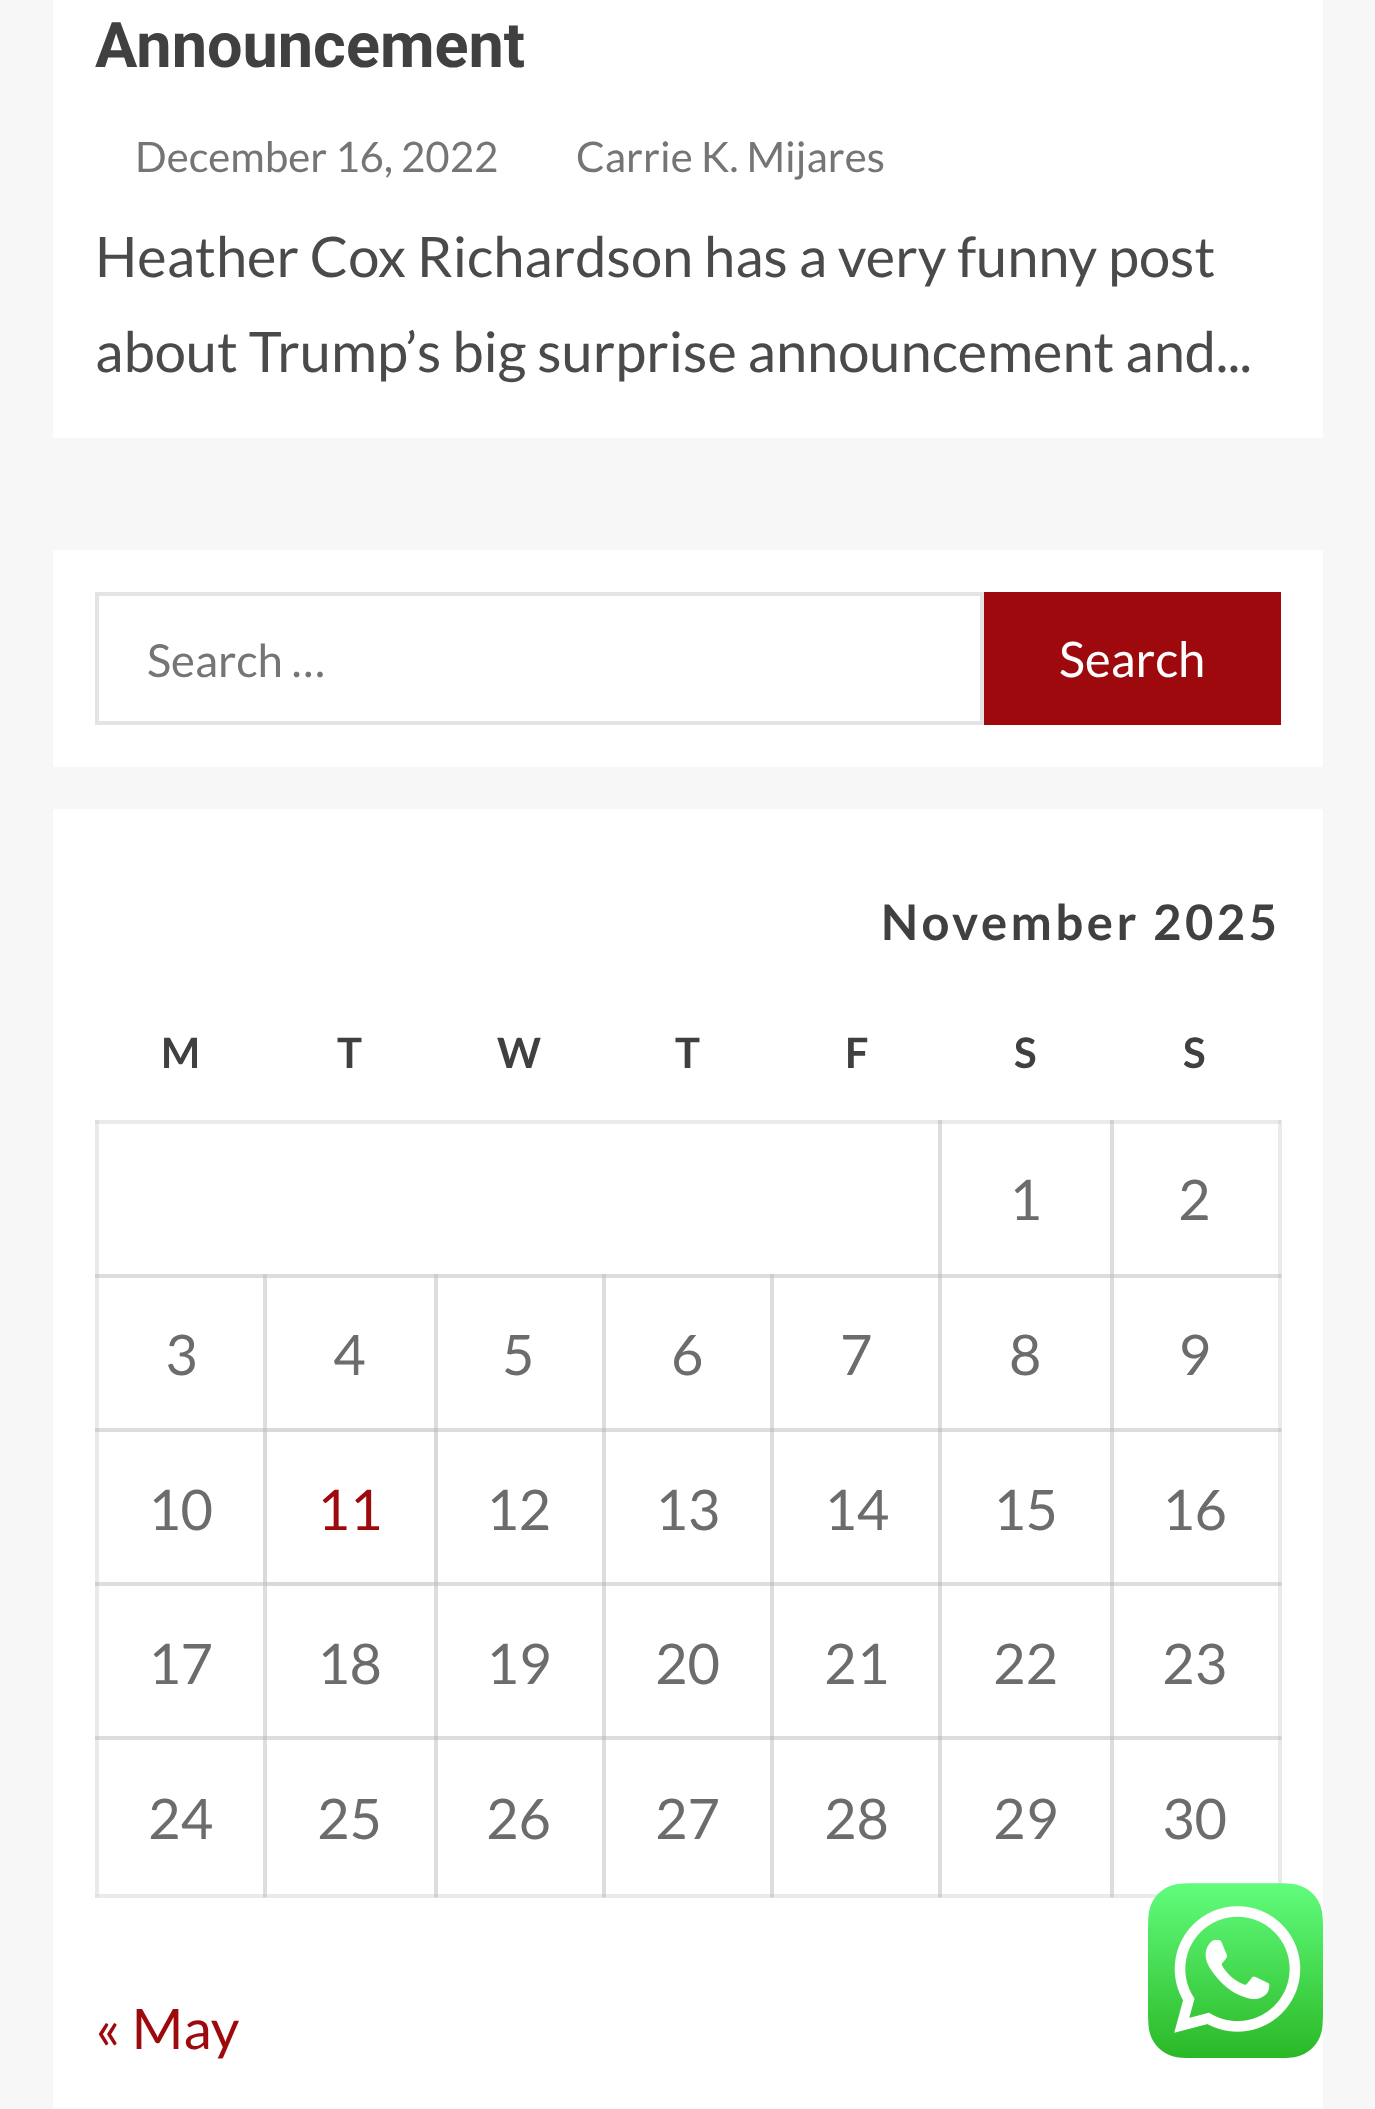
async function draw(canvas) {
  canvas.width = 1375;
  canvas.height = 2109;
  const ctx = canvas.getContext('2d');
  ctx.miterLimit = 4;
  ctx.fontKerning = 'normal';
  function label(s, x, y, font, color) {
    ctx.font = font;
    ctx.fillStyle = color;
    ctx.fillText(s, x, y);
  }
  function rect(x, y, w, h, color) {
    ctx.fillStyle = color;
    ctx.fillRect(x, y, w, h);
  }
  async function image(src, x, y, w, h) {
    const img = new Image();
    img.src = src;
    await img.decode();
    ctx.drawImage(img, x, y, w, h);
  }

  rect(0, 0, 1375, 2109, '#f7f7f7');
  rect(53, 0, 1270, 438, '#fff');
  label('Announcement', 95, 67, 'bold 63px Roboto', '#404040');
  label('December 16, 2022', 135, 172, '42px Lato', '#757575');
  label('Carrie K. Mijares', 576, 172, '42px Lato', '#757575');
  label('Heather Cox Richardson has a very funny post', 95, 277, '56px Lato', '#4a4a4a');
  label('about Trump’s big surprise announcement and...', 95, 372, '56px Lato', '#4a4a4a');
  rect(53, 550, 1270, 217, '#fff');
  ctx.strokeStyle = '#e4e4e4';
  ctx.lineWidth = 4;
  ctx.strokeRect(97, 594, 885, 129);
  label('Search …', 147, 677, '45.5px Lato', '#757575');
  rect(984, 592, 297, 133, '#9d090d');
  label('Search', 1059, 677, '49px Lato', '#fff');
  rect(53, 809, 1270, 1300, '#fff');
  rect(95, 1120, 4, 777, '#eaeaea');
  rect(95, 1120, 847, 4, '#eaeaea');
  rect(95, 1120, 4, 4, '#ddd');
  rect(938, 1120, 4, 158, '#ddd');
  rect(938, 1120, 175, 4, '#eaeaea');
  rect(938, 1120, 4, 4, '#d0d0d0');
  rect(1110, 1120, 4, 158, '#ddd');
  rect(1278, 1120, 4, 764, '#eaeaea');
  rect(95, 1274, 171, 4, '#ddd');
  rect(95, 1274, 4, 4, '#d0d0d0');
  rect(263, 1274, 4, 158, '#ddd');
  rect(263, 1274, 175, 4, '#ddd');
  rect(263, 1274, 4, 4, '#d0d0d0');
  rect(263, 1274, 3, 4, '#cdcdcd');
  rect(434, 1274, 4, 158, '#ddd');
  rect(434, 1274, 172, 4, '#ddd');
  rect(434, 1274, 4, 4, '#cdcdcd');
  rect(602, 1274, 4, 158, '#ddd');
  rect(602, 1274, 172, 4, '#ddd');
  rect(602, 1274, 4, 4, '#cdcdcd');
  rect(770, 1274, 4, 158, '#ddd');
  rect(770, 1274, 172, 4, '#ddd');
  rect(770, 1274, 4, 4, '#cdcdcd');
  rect(938, 1274, 4, 158, '#ddd');
  rect(938, 1274, 175, 4, '#ddd');
  rect(938, 1274, 4, 4, '#c9c9c9');
  rect(1110, 1274, 4, 158, '#ddd');
  rect(1110, 1274, 172, 4, '#ddd');
  rect(95, 1428, 171, 4, '#ddd');
  rect(95, 1428, 4, 4, '#d0d0d0');
  rect(263, 1428, 4, 158, '#d9d9d9');
  rect(263, 1428, 175, 4, '#d9d9d9');
  rect(263, 1428, 4, 4, '#cacaca');
  rect(434, 1428, 4, 158, '#d9d9d9');
  rect(434, 1428, 172, 4, '#ddd');
  rect(434, 1428, 4, 4, '#c9c9c9');
  rect(602, 1428, 4, 158, '#ddd');
  rect(602, 1428, 172, 4, '#ddd');
  rect(602, 1428, 4, 4, '#c9c9c9');
  rect(770, 1428, 4, 158, '#ddd');
  rect(770, 1428, 172, 4, '#ddd');
  rect(770, 1428, 4, 4, '#c9c9c9');
  rect(938, 1428, 4, 158, '#ddd');
  rect(938, 1428, 175, 4, '#ddd');
  rect(938, 1428, 4, 4, '#c9c9c9');
  rect(1110, 1428, 4, 158, '#ddd');
  rect(1110, 1428, 172, 4, '#ddd');
  rect(95, 1582, 171, 4, '#ddd');
  rect(95, 1582, 4, 4, '#d0d0d0');
  rect(263, 1582, 4, 158, '#ddd');
  rect(263, 1582, 175, 4, '#d9d9d9');
  rect(263, 1582, 4, 4, '#cacaca');
  rect(434, 1582, 4, 158, '#ddd');
  rect(434, 1582, 172, 4, '#ddd');
  rect(434, 1582, 4, 4, '#c9c9c9');
  rect(602, 1582, 4, 158, '#ddd');
  rect(602, 1582, 172, 4, '#ddd');
  rect(602, 1582, 4, 4, '#c9c9c9');
  rect(770, 1582, 4, 158, '#ddd');
  rect(770, 1582, 172, 4, '#ddd');
  rect(770, 1582, 4, 4, '#c9c9c9');
  rect(938, 1582, 4, 158, '#ddd');
  rect(938, 1582, 175, 4, '#ddd');
  rect(938, 1582, 4, 4, '#c9c9c9');
  rect(1110, 1582, 4, 158, '#ddd');
  rect(1110, 1582, 172, 4, '#ddd');
  rect(95, 1894, 171, 4, '#eaeaea');
  rect(95, 1894, 4, 3, '#e0e0e0');
  rect(95, 1736, 171, 4, '#ddd');
  rect(95, 1736, 4, 4, '#d1d1d1');
  rect(263, 1736, 4, 161, '#ddd');
  rect(263, 1894, 175, 4, '#eaeaea');
  rect(263, 1894, 3, 4, '#ddd');
  rect(263, 1894, 4, 3, '#d7d7d7');
  rect(263, 1894, 3, 3, '#d1d1d1');
  rect(263, 1736, 175, 4, '#ddd');
  rect(263, 1736, 4, 4, '#cbcbcb');
  rect(434, 1736, 4, 161, '#ddd');
  rect(434, 1894, 172, 4, '#eaeaea');
  rect(434, 1897, 4, 1, '#ddd');
  rect(434, 1894, 4, 3, '#d1d1d1');
  rect(434, 1736, 172, 4, '#ddd');
  rect(434, 1736, 4, 4, '#c9c9c9');
  rect(602, 1736, 4, 161, '#ddd');
  rect(602, 1894, 172, 4, '#eaeaea');
  rect(602, 1897, 4, 1, '#ddd');
  rect(602, 1894, 4, 3, '#d1d1d1');
  rect(602, 1736, 172, 4, '#ddd');
  rect(602, 1736, 4, 4, '#c9c9c9');
  rect(770, 1736, 4, 161, '#ddd');
  rect(770, 1894, 172, 4, '#eaeaea');
  rect(770, 1897, 4, 1, '#ddd');
  rect(770, 1894, 4, 3, '#d1d1d1');
  rect(770, 1736, 172, 4, '#ddd');
  rect(770, 1736, 4, 4, '#c9c9c9');
  rect(938, 1736, 4, 161, '#ddd');
  rect(938, 1894, 175, 4, '#eaeaea');
  rect(938, 1897, 4, 1, '#ddd');
  rect(938, 1894, 4, 3, '#d1d1d1');
  rect(938, 1736, 175, 4, '#ddd');
  rect(938, 1736, 4, 4, '#c9c9c9');
  rect(1110, 1736, 4, 161, '#ddd');
  rect(1110, 1894, 48, 4, '#eaeaea');
  rect(1110, 1894, 3, 4, '#ddd');
  rect(1110, 1894, 4, 3, '#d7d7d7');
  rect(1110, 1894, 3, 3, '#d1d1d1');
  rect(1110, 1736, 172, 4, '#ddd');
  ctx.letterSpacing = '3.5px';
  label('November 2025', 881, 940, 'bold 49px Lato', '#404040');
  ctx.letterSpacing = '0px';
  label('M', 161, 1068, 'bold 42px Lato', '#404040');
  label('T', 337, 1068, 'bold 42px Lato', '#404040');
  label('W', 497, 1068, 'bold 42px Lato', '#404040');
  label('T', 675, 1068, 'bold 42px Lato', '#404040');
  label('F', 845, 1068, 'bold 42px Lato', '#404040');
  label('S', 1014, 1068, 'bold 42px Lato', '#404040');
  label('S', 1183, 1068, 'bold 42px Lato', '#404040');
  label('1', 1009, 1220, '56px Lato', '#6c6c6c');
  rect(1110, 1120, 171, 4, '#eaeaea');
  rect(1110, 1120, 4, 4, '#d5d5d5');
  rect(1110, 1120, 3, 4, '#d0d0d0');
  rect(1278, 1120, 3, 4, '#ddd');
  label('2', 1178, 1220, '56px Lato', '#6c6c6c');
  label('3', 165, 1375, '56px Lato', '#6c6c6c');
  label('4', 333, 1375, '56px Lato', '#6c6c6c');
  label('5', 502, 1375, '56px Lato', '#6c6c6c');
  label('6', 671, 1375, '56px Lato', '#6c6c6c');
  label('7', 840, 1375, '56px Lato', '#6c6c6c');
  label('8', 1009, 1375, '56px Lato', '#6c6c6c');
  rect(1110, 1274, 4, 4, '#cbcbcb');
  rect(1278, 1274, 3, 4, '#d0d0d0');
  label('9', 1178, 1375, '56px Lato', '#6c6c6c');
  label('10', 148, 1530, '56px Lato', '#6c6c6c');
  label('11', 317, 1530, '56px Lato', '#9d090d');
  label('12', 486, 1530, '56px Lato', '#6c6c6c');
  label('13', 655, 1530, '56px Lato', '#6c6c6c');
  label('14', 824, 1530, '56px Lato', '#6c6c6c');
  label('15', 993, 1530, '56px Lato', '#6c6c6c');
  rect(1110, 1428, 4, 4, '#cbcbcb');
  rect(1278, 1428, 3, 4, '#d0d0d0');
  label('16', 1162, 1530, '56px Lato', '#6c6c6c');
  label('17', 148, 1684, '56px Lato', '#6c6c6c');
  label('18', 317, 1684, '56px Lato', '#6c6c6c');
  label('19', 486, 1684, '56px Lato', '#6c6c6c');
  label('20', 655, 1684, '56px Lato', '#6c6c6c');
  label('21', 824, 1684, '56px Lato', '#6c6c6c');
  label('22', 993, 1684, '56px Lato', '#6c6c6c');
  rect(1110, 1582, 4, 4, '#cbcbcb');
  rect(1278, 1582, 3, 4, '#d0d0d0');
  label('23', 1162, 1684, '56px Lato', '#6c6c6c');
  label('24', 148, 1839, '56px Lato', '#6c6c6c');
  label('25', 317, 1839, '56px Lato', '#6c6c6c');
  label('26', 486, 1839, '56px Lato', '#6c6c6c');
  label('27', 655, 1839, '56px Lato', '#6c6c6c');
  label('28', 824, 1839, '56px Lato', '#6c6c6c');
  label('29', 993, 1839, '56px Lato', '#6c6c6c');
  rect(1110, 1736, 4, 4, '#cbcbcb');
  rect(1278, 1736, 3, 4, '#d1d1d1');
  label('30', 1162, 1839, '56px Lato', '#6c6c6c');
  label('« May', 95, 2049, '56px Lato', '#9d090d');
  await image('assets/img1.png', 1148, 1883, 175, 175);
}

draw(document.querySelector('canvas'));
